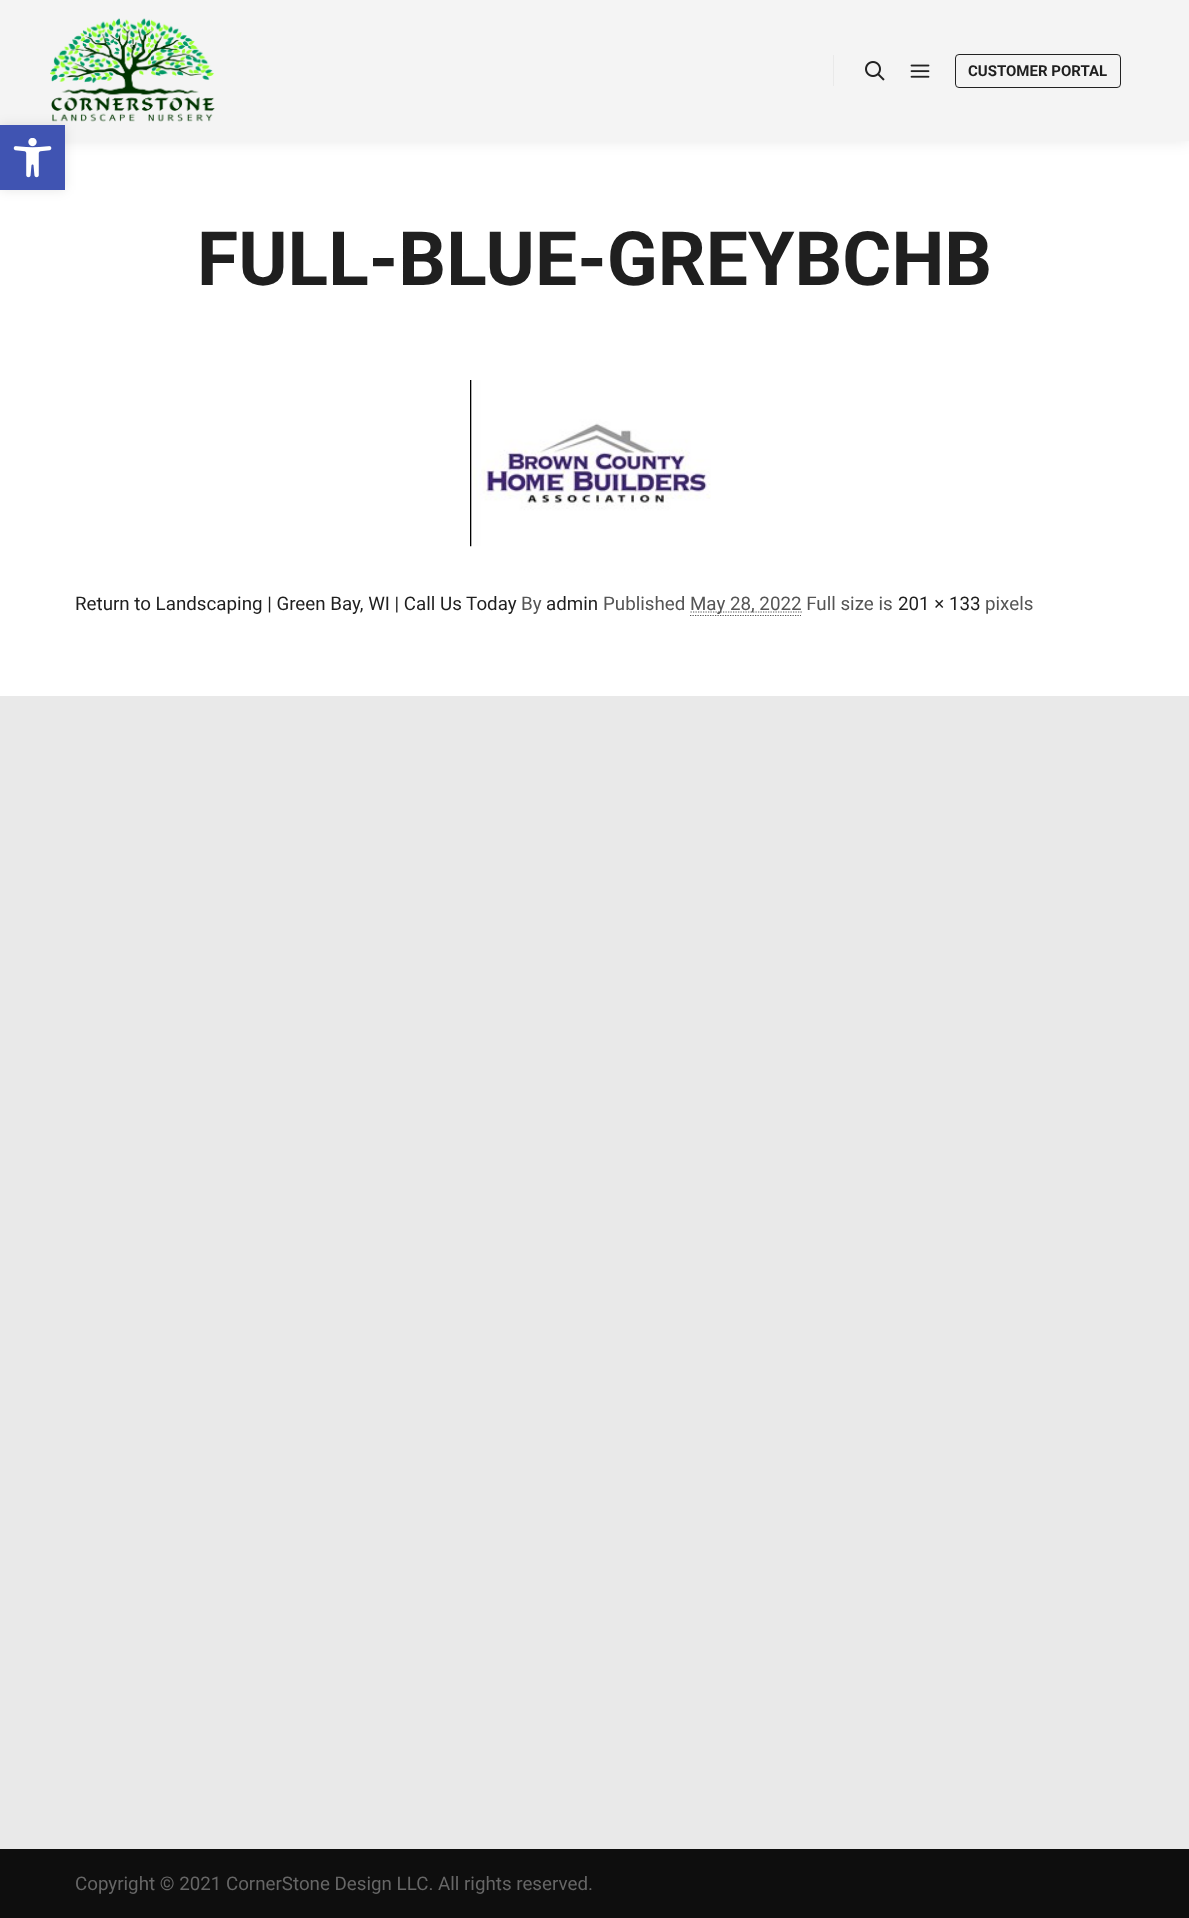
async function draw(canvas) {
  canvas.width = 1189;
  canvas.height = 1918;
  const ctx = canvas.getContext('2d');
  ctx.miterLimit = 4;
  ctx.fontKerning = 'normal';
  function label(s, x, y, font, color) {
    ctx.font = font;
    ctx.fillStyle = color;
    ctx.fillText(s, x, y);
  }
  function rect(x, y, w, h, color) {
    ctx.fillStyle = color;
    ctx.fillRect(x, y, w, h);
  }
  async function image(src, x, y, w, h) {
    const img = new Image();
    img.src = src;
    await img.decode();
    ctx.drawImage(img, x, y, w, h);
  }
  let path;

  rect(0, 0, 1189, 1918, '#e9e9e9');
  rect(0, 141, 1189, 555, '#fff');
  ctx.fillStyle = '#00000017';
  ctx.filter = 'blur(7.5px)';
  ctx.beginPath();
  ctx.rect(0, 0, 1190, 141);
  ctx.fill();
  ctx.filter = 'none';
  rect(0, 0, 1189, 141, '#f4f4f4');
  await image('assets/img2.png', 50, 18, 165, 104);
  ctx.fillStyle = '#0000001a';
  ctx.filter = 'blur(6px)';
  ctx.beginPath();
  ctx.rect(0, 125, 65, 65);
  ctx.fill();
  ctx.filter = 'none';
  rect(0, 125, 65, 65, '#4054b2');
  await image('assets/img1.png', 13, 138, 39, 40);
  rect(833, 55, 1, 31, '#e9e9e9');
  await image('assets/img3.png', 865, 61, 20, 20);
  await image('assets/img4.png', 910, 64, 20, 14);
  ctx.beginPath();
  ctx.roundRect(955.5, 54.5, 165, 33, 3.5);
  ctx.strokeStyle = '#222';
  ctx.stroke();
  label('CUSTOMER PORTAL', 968, 76, 'bold 15px Roboto', '#1f1f1f');
  label('FULL-BLUE-GREYBCHB', 197, 285, 'bold 75px Roboto', '#1f1f1f');
  await image('assets/img5.png', 470, 380, 241, 167);
  label('Return to Landscaping | Green Bay, WI | Call Us Today', 75, 610, '18.75px Roboto', '#1f1f1f');
  label('By', 521, 610, '18.75px Roboto', '#555');
  label('admin', 546, 610, '18.75px Roboto', '#1f1f1f');
  label('Published', 603, 610, '18.75px Roboto', '#555');
  path = new Path2D('M690.5 612H802');
  ctx.strokeStyle = '#555';
  ctx.lineWidth = 1.2;
  ctx.setLineDash([1.25, 1.25]);
  ctx.stroke(path);
  label('May 28, 2022 Full size is', 690, 610, '18.75px Roboto', '#555');
  path = new Path2D('M690 615.5H801');
  ctx.stroke(path);
  label('201 × 133', 898, 610, '18.75px Roboto', '#1f1f1f');
  label('pixels', 985, 610, '18.75px Roboto', '#555');
  rect(0, 1849, 1189, 69, '#0e0e0e');
  label('Copyright © 2021 CornerStone Design LLC. All rights reserved.', 75, 1890, '18.75px Roboto', '#666');
}

draw(document.querySelector('canvas'));
